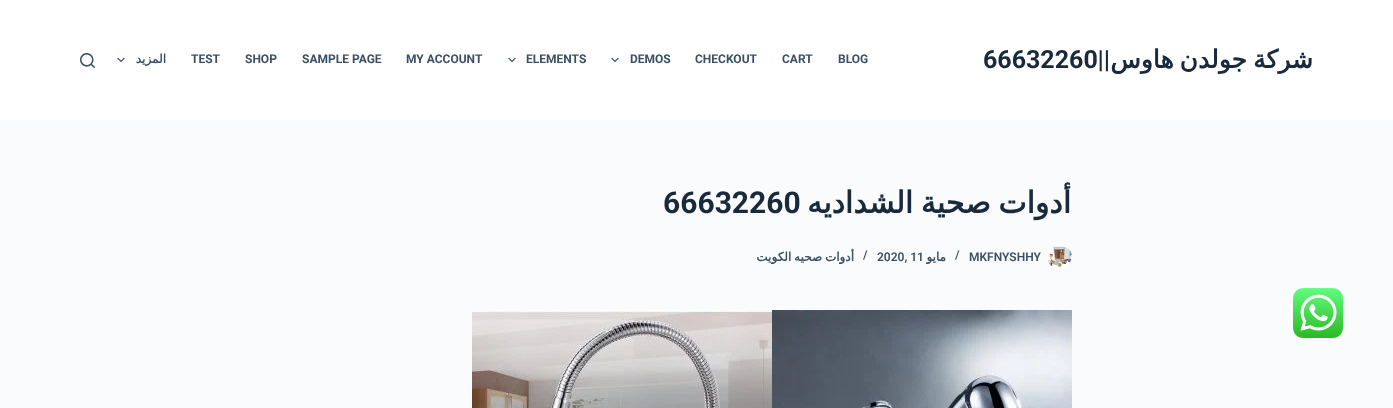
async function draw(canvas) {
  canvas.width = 1393;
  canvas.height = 408;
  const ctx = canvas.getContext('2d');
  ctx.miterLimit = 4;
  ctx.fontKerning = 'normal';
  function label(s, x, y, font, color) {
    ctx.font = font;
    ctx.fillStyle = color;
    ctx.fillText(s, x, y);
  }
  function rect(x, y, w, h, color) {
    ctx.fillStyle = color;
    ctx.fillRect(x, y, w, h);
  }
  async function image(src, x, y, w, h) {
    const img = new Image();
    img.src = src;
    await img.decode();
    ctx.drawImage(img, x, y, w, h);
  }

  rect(0, 0, 1393, 408, '#fafbfc');
  rect(0, 0, 1393, 120, '#fff');
  await image('assets/img1.png', 80, 53, 15, 15);
  await image('assets/img2.png', 117, 57, 8, 6);
  ctx.direction = 'rtl';
  label('المزيد', 166, 63, 'bold 12px DejaVu Sans', '#3a4f66');
  ctx.direction = 'ltr';
  label('TEST', 191, 63, 'bold 12px Roboto', '#3a4f66');
  label('SHOP', 245, 63, 'bold 12px Roboto', '#3a4f66');
  label('SAMPLE PAGE', 302, 63, 'bold 12px Roboto', '#3a4f66');
  label('MY ACCOUNT', 406, 63, 'bold 12px Roboto', '#3a4f66');
  await image('assets/img2.png', 508, 57, 8, 6);
  label('ELEMENTS', 526, 63, 'bold 12px Roboto', '#3a4f66');
  await image('assets/img2.png', 611, 57, 8, 6);
  label('DEMOS', 630, 63, 'bold 12px Roboto', '#3a4f66');
  label('CHECKOUT', 695, 63, 'bold 12px Roboto', '#3a4f66');
  label('CART', 782, 63, 'bold 12px Roboto', '#3a4f66');
  label('BLOG', 838, 63, 'bold 12px Roboto', '#3a4f66');
  label('66632260', 983, 68, 'bold 25px Roboto', '#192a3d');
  ctx.direction = 'rtl';
  label('||', 1110, 68, 'bold 25px Roboto', '#192a3d');
  ctx.wordSpacing = '-2px';
  label('شركة جولدن هاوس', 1313, 68, 'bold 25px DejaVu Sans', '#192a3d');
  ctx.wordSpacing = '0px';
  ctx.direction = 'ltr';
  label('66632260', 663, 213, 'bold 30px Roboto', '#192a3d');
  ctx.wordSpacing = '-2px';
  ctx.direction = 'rtl';
  label('أدوات صحية الشداديه', 1071, 213, 'bold 30px DejaVu Sans', '#192a3d');
  ctx.wordSpacing = '-1px';
  label('أدوات صحيه الكويت', 854, 261, 'bold 12px DejaVu Sans', '#3a4f66');
  ctx.wordSpacing = '0px';
  ctx.direction = 'ltr';
  label('/', 863, 259, '600 12px Roboto', '#3a4f66');
  label('2020, 11', 877, 261, '600 12px Roboto', '#3a4f66');
  ctx.direction = 'rtl';
  label('مايو', 946, 261, 'bold 12px DejaVu Sans', '#3a4f66');
  ctx.direction = 'ltr';
  label('/', 955, 259, '600 12px Roboto', '#3a4f66');
  label('MKFNYSHHY', 969, 261, '600 12px Roboto', '#3a4f66');
  await image('assets/img3.png', 1047, 245, 25, 24);
  await image('assets/img4.png', 472, 310, 300, 98);
  await image('assets/img5.png', 772, 310, 300, 98);
  await image('assets/img6.png', 1293, 288, 50, 50);
}

draw(document.querySelector('canvas'));
